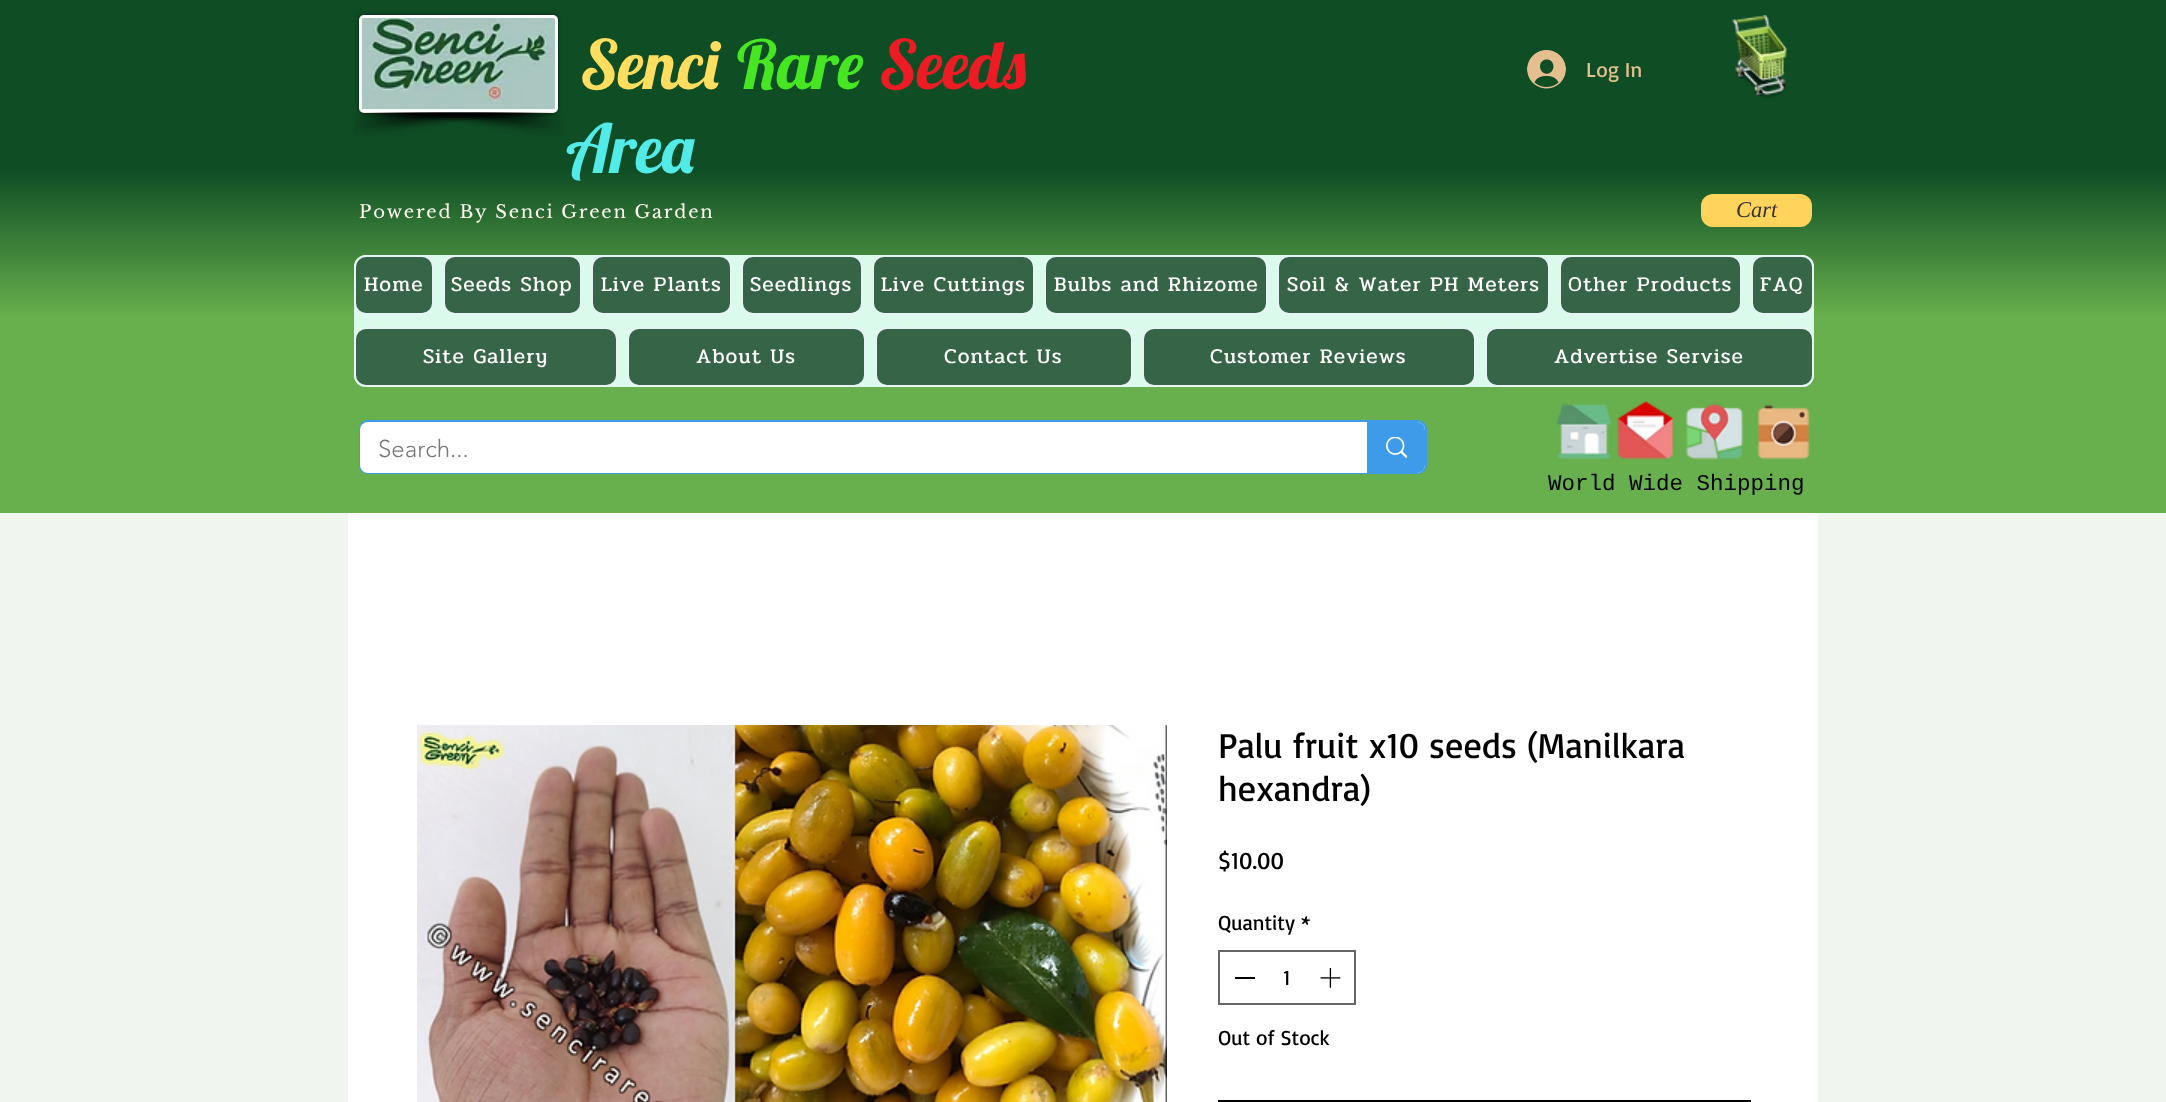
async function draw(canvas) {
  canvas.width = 2166;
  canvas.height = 1102;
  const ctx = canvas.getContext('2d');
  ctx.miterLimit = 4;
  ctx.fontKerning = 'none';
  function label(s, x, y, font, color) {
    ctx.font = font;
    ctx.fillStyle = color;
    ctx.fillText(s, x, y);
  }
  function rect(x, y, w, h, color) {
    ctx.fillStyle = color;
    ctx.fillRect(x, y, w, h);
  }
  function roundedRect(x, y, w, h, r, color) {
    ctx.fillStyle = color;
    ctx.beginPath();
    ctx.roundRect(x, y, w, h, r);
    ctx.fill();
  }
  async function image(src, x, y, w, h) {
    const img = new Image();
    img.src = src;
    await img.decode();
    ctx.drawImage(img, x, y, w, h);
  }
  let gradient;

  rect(0, 0, 2166, 1102, '#fff');
  gradient = ctx.createLinearGradient(1083, 0, 1083, 513);
  gradient.addColorStop(0.33, '#0f4d25');
  gradient.addColorStop(0.62, '#68b04d');
  ctx.fillStyle = gradient;
  ctx.fillRect(0, 0, 2166, 513);
  ctx.fillStyle = '#00000080';
  ctx.filter = 'blur(2px)';
  ctx.beginPath();
  ctx.roundRect(359, 15, 199, 98, 5);
  ctx.fill();
  ctx.filter = 'none';
  ctx.fillStyle = '#fff';
  ctx.beginPath();
  ctx.roundRect(360.5, 16.5, 196, 95, 3.5);
  ctx.fill();
  ctx.strokeStyle = '#fff';
  ctx.lineWidth = 3;
  ctx.stroke();
  await image('assets/img1.png', 361, 18, 194, 92);
  await image('assets/img2.png', 353, 112, 202, 24);
  await image('assets/img3.png', 362, 112, 202, 24);
  label('Senci', 580, 89, '67.5px Lobster', '#ffde5f');
  label('Rare', 737, 89, '67.5px Lobster', '#47e623');
  label('Seeds', 879, 89, '67.5px Lobster', '#ed1c24');
  label('Area', 566, 173, '67.5px Lobster', '#52ebe8');
  await image('assets/img4.png', 1527, 50, 39, 39);
  label('Log In', 1586, 77, '21px Basic', '#e4bf8f');
  await image('assets/img5.png', 1732, 15, 55, 83);
  ctx.letterSpacing = '1.8px';
  label('Powered By Senci Green Garden', 359, 218, '18px Libre Baskerville', '#fffbf1');
  roundedRect(1701, 194, 111, 33, 12, '#ffd45a');
  ctx.letterSpacing = '0px';
  label('Cart', 1736, 217, 'italic 22.5px Liberation Serif', '#353131');
  roundedRect(354, 255, 1460, 132, 12, '#dafbeb');
  ctx.fillStyle = '#114422d1';
  ctx.beginPath();
  ctx.roundRect(355, 256, 78, 58, 11);
  ctx.fill();
  ctx.strokeStyle = '#e7f4f6';
  ctx.lineWidth = 2;
  ctx.stroke();
  ctx.letterSpacing = '1.05px';
  label('Home', 364, 291, '21px Pridi', '#fffffe');
  ctx.fillStyle = '#356546';
  ctx.beginPath();
  ctx.roundRect(444, 256, 137, 58, 11);
  ctx.fill();
  ctx.stroke();
  label('Seeds Shop', 451, 291, '21px Pridi', '#fffffe');
  ctx.fillStyle = '#356546';
  ctx.beginPath();
  ctx.roundRect(592, 256, 139, 58, 11);
  ctx.fill();
  ctx.stroke();
  label('Live Plants', 601, 291, '21px Pridi', '#fffffe');
  ctx.fillStyle = '#356546';
  ctx.beginPath();
  ctx.roundRect(742, 256, 120, 58, 11);
  ctx.fill();
  ctx.stroke();
  label('Seedlings', 750, 291, '21px Pridi', '#fffffe');
  ctx.fillStyle = '#356546';
  ctx.beginPath();
  ctx.roundRect(873, 256, 161, 58, 11);
  ctx.fill();
  ctx.stroke();
  label('Live Cuttings', 881, 291, '21px Pridi', '#fffffe');
  ctx.fillStyle = '#356546';
  ctx.beginPath();
  ctx.roundRect(1045, 256, 222, 58, 11);
  ctx.fill();
  ctx.stroke();
  label('Bulbs and Rhizome', 1054, 291, '21px Pridi', '#fffffe');
  ctx.fillStyle = '#356546';
  ctx.beginPath();
  ctx.roundRect(1278, 256, 271, 58, 11);
  ctx.fill();
  ctx.stroke();
  label('Soil & Water PH Meters', 1287, 291, '21px Pridi', '#fffffe');
  ctx.fillStyle = '#356546';
  ctx.beginPath();
  ctx.roundRect(1560, 256, 181, 58, 11);
  ctx.fill();
  ctx.stroke();
  label('Other Products', 1568, 291, '21px Pridi', '#fffffe');
  ctx.fillStyle = '#114422d1';
  ctx.beginPath();
  ctx.roundRect(1752, 256, 61, 58, 11);
  ctx.fill();
  ctx.stroke();
  label('FAQ', 1760, 291, '21px Pridi', '#fffffe');
  ctx.fillStyle = '#114422d1';
  ctx.beginPath();
  ctx.roundRect(355, 328, 262, 58, 11);
  ctx.fill();
  ctx.stroke();
  label('Site Gallery', 423, 363, '21px Pridi', '#fffffe');
  ctx.fillStyle = '#356546';
  ctx.beginPath();
  ctx.roundRect(628, 328, 237, 58, 11);
  ctx.fill();
  ctx.stroke();
  label('About Us', 696, 363, '21px Pridi', '#fffffe');
  ctx.fillStyle = '#356546';
  ctx.beginPath();
  ctx.roundRect(876, 328, 256, 58, 11);
  ctx.fill();
  ctx.stroke();
  label('Contact Us', 944, 363, '21px Pridi', '#fffffe');
  ctx.fillStyle = '#356546';
  ctx.beginPath();
  ctx.roundRect(1143, 328, 332, 58, 11);
  ctx.fill();
  ctx.stroke();
  label('Customer Reviews', 1210, 363, '21px Pridi', '#fffffe');
  ctx.fillStyle = '#114422d1';
  ctx.beginPath();
  ctx.roundRect(1486, 328, 327, 58, 11);
  ctx.fill();
  ctx.stroke();
  label('Advertise Servise', 1554, 363, '21px Pridi', '#fffffe');
  ctx.beginPath();
  ctx.roundRect(360, 421, 1066, 52, 8);
  ctx.strokeStyle = '#3d9be9';
  ctx.stroke();
  roundedRect(360, 422, 1065, 51, 8, '#fff');
  ctx.letterSpacing = '0px';
  label('Search...', 378, 457, '300 24px "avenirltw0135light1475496"', '#787878');
  ctx.fillStyle = '#3d9be9';
  ctx.beginPath();
  ctx.roundRect(1367, 422, 58, 51, [0, 8, 8, 0]);
  ctx.fill();
  await image('assets/img6.png', 1386, 437, 21, 21);
  await image('assets/img7.png', 1556, 403, 56, 57);
  await image('assets/img8.png', 1617, 400, 58, 60);
  await image('assets/img9.png', 1685, 403, 59, 57);
  await image('assets/img10.png', 1757, 404, 53, 56);
  label('World Wide Shipping', 1548, 490, '22.5px Liberation Mono', '#000');
  rect(0, 513, 2166, 589, '#f1f5ef');
  rect(348, 513, 1470, 589, '#fff');
  await image('assets/img11.png', 417, 725, 750, 377);
  label('Palu fruit x10 seeds (Manilkara', 1218, 758, '36px Basic', '#000');
  label('hexandra)', 1218, 801, '36px Basic', '#000');
  label('$10.00', 1218, 869, '24px Basic', '#000');
  label('Quantity *', 1218, 930, '21px Basic', '#000');
  ctx.strokeStyle = '#666';
  ctx.strokeRect(1219, 951, 136, 53);
  rect(1235, 977, 20, 2, '#000');
  label('1', 1283, 985, '21px Basic', '#000');
  await image('assets/img12.png', 1320, 968, 21, 20);
  label('Out of Stock', 1218, 1045, '21px Basic', '#000');
  ctx.strokeStyle = '#000';
  ctx.lineWidth = 3;
  ctx.strokeRect(1219.5, 1101.5, 530, 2);
}

draw(document.querySelector('canvas'));
